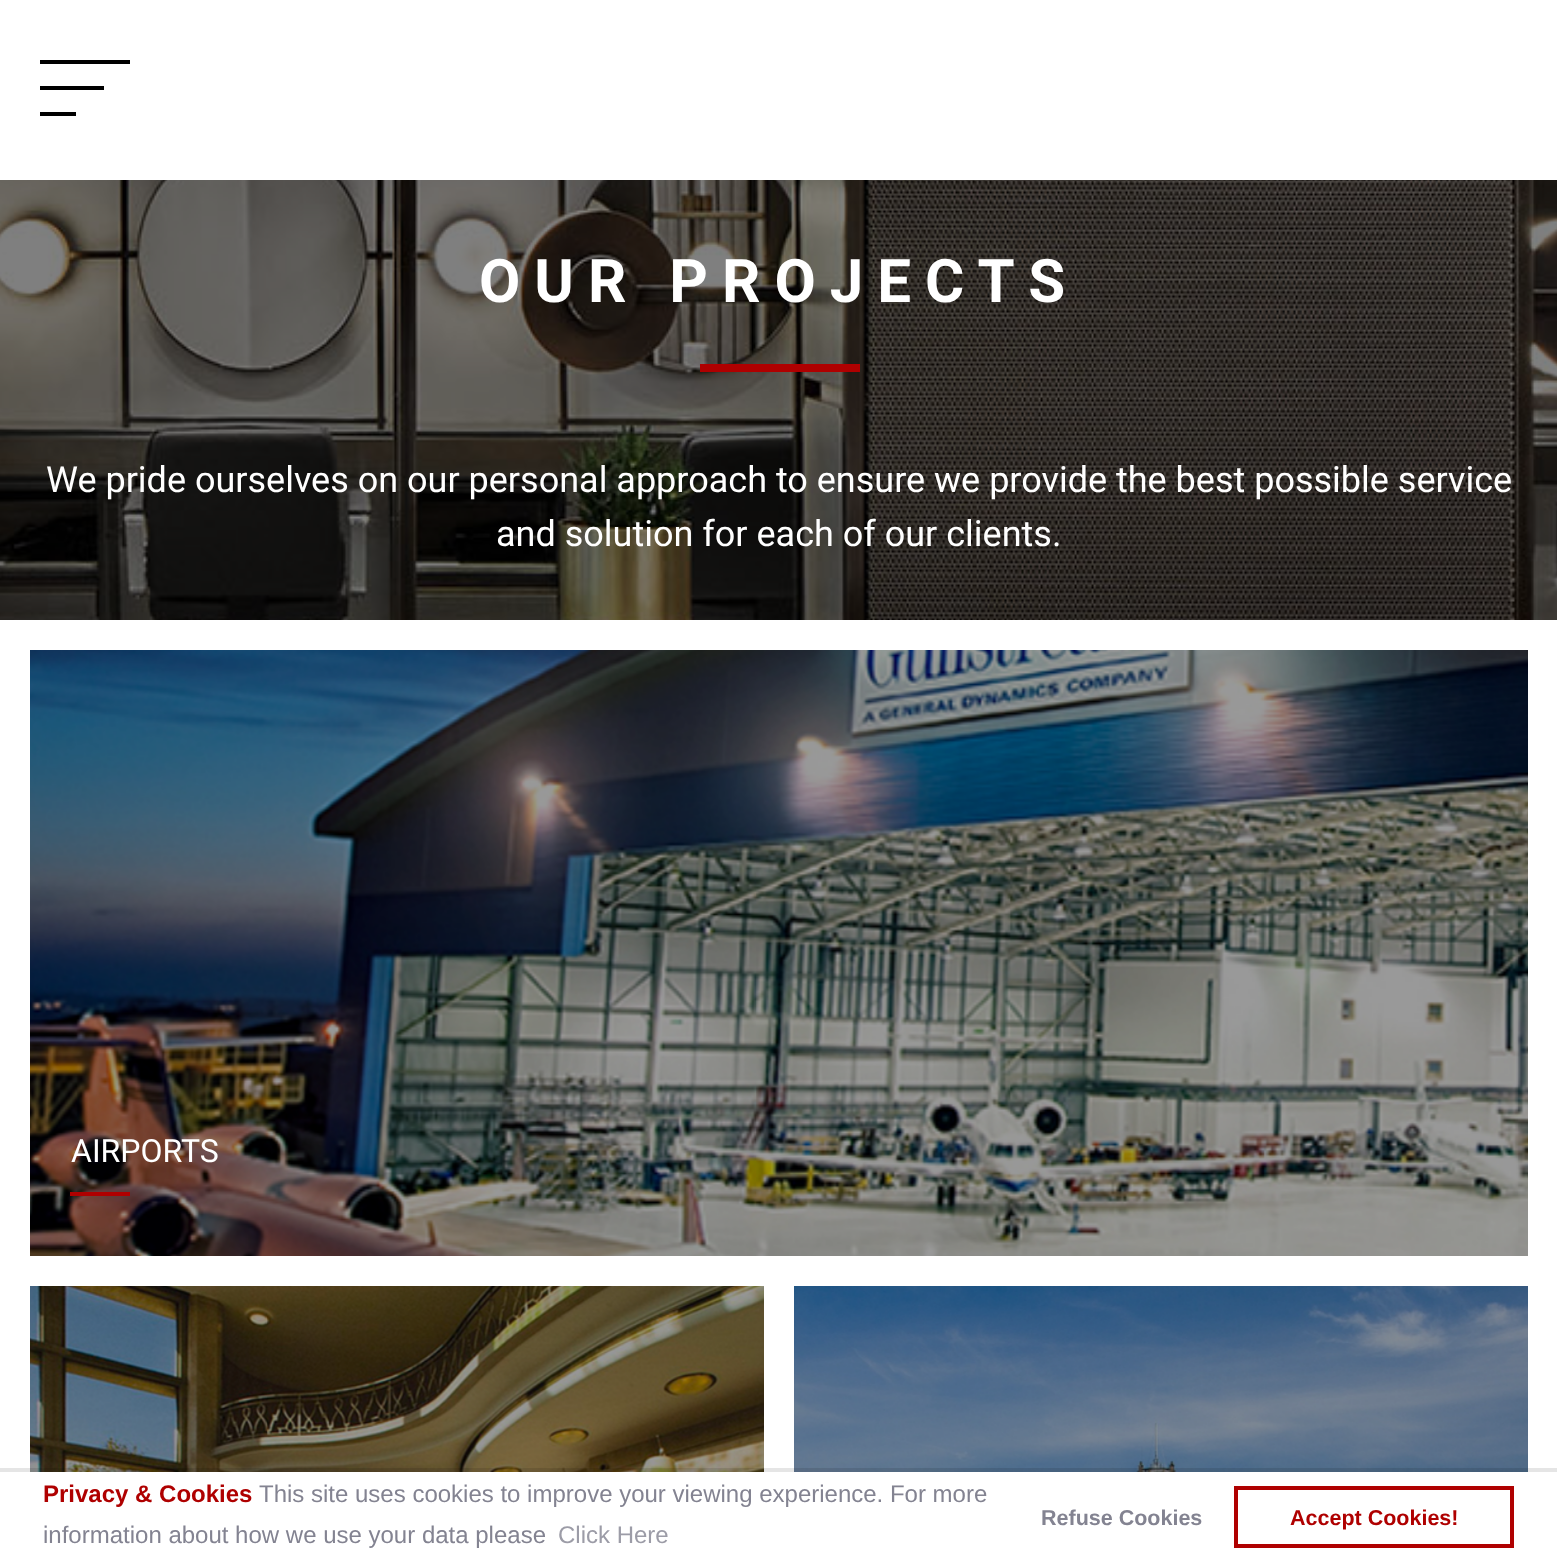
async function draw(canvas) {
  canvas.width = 1557;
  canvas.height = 1562;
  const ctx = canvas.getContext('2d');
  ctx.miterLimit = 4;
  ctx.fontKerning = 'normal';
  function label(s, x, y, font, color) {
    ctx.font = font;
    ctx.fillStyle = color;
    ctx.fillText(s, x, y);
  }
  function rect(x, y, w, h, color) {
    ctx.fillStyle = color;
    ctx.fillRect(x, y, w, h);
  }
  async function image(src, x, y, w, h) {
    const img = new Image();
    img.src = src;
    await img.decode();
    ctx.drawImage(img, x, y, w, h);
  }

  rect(0, 0, 1557, 1562, '#fff');
  rect(40, 60, 90, 4, '#000');
  rect(40, 86, 64, 4, '#000');
  rect(40, 112, 36, 4, '#000');
  rect(0, 180, 1557, 440, '#000');
  await image('assets/img1.png', 0, 180, 1557, 440);
  ctx.letterSpacing = '14px';
  label('OUR PROJECTS', 479, 302, 'bold 60px Roboto', '#fff');
  rect(700, 364, 160, 8, '#af0000');
  ctx.letterSpacing = '0px';
  label('We pride ourselves on our personal approach to ensure we provide the best possible service', 46, 492, '36px Roboto', '#fff');
  label('and solution for each of our clients.', 496, 546, '36px Roboto', '#fff');
  rect(30, 650, 1498, 606, '#000');
  await image('assets/img2.png', 30, 650, 1498, 606);
  label('AIRPORTS', 71, 1162, '32px Roboto', '#fff');
  rect(70, 1192, 60, 4, '#af0000');
  rect(30, 1286, 734, 186, '#000');
  await image('assets/img3.png', 30, 1286, 734, 186);
  rect(794, 1286, 734, 186, '#000');
  await image('assets/img4.png', 794, 1286, 734, 186);
  rect(0, 1468, 1557, 4, '#0000001a');
  label('Privacy & Cookies', 43, 1502, 'bold 24px Liberation Sans', '#af0000');
  label('This site uses cookies to improve your viewing experience. For more', 259, 1502, '24px Liberation Sans', '#838391');
  label('information about how we use your data please', 43, 1543, '24px Liberation Sans', '#838391');
  label('Click Here', 558, 1543, '24px Liberation Sans', '#9c9ca7');
  label('Refuse Cookies', 1041, 1525, 'bold 21.5px Liberation Sans', '#838391');
  ctx.strokeStyle = '#af0000';
  ctx.lineWidth = 4;
  ctx.strokeRect(1236, 1488, 276, 58);
  label('Accept Cookies!', 1290, 1525, 'bold 21.5px Liberation Sans', '#af0000');
}

draw(document.querySelector('canvas'));
